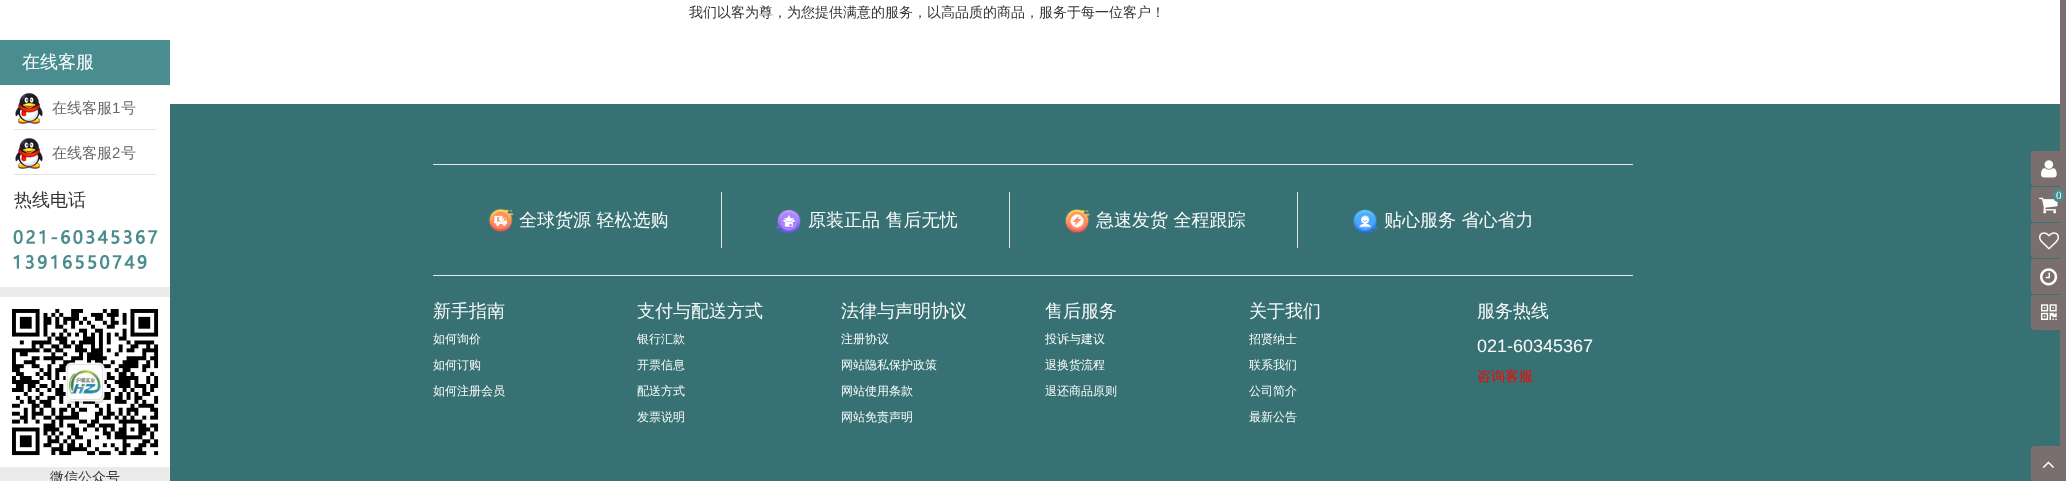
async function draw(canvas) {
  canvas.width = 2066;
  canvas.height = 481;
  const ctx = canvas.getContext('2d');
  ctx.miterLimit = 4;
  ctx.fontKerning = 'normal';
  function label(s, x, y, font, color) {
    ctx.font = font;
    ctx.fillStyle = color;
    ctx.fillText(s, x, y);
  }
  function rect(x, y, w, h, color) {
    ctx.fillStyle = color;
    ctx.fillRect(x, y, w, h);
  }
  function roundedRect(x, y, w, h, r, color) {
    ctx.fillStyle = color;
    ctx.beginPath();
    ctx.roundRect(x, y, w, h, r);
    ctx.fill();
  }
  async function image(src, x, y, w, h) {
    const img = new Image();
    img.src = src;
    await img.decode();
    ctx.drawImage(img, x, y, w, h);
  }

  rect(0, 0, 2066, 481, '#fff');
  label('我们以客为尊，为您提供满意的服务，以高品质的商品，服务于每一位客户！', 689, 17, '500 14px WenQuanYi Zen Hei', '#333');
  rect(0, 40, 170, 45, '#4a8d90');
  label('在线客服', 22, 68, '500 18px WenQuanYi Zen Hei', '#fff');
  rect(14, 129, 142, 1, '#e3e3e3');
  await image('assets/img1.png', 15, 93, 29, 33);
  label('在线客服', 52, 113, '500 15px WenQuanYi Zen Hei', '#666');
  label('1', 112, 113, '15px Liberation Sans', '#666');
  label('号', 121, 113, '500 15px WenQuanYi Zen Hei', '#666');
  rect(14, 174, 142, 1, '#e3e3e3');
  await image('assets/img1.png', 15, 138, 29, 33);
  label('在线客服', 52, 158, '500 15px WenQuanYi Zen Hei', '#666');
  label('2', 112, 158, '15px Liberation Sans', '#666');
  label('号', 121, 158, '500 15px WenQuanYi Zen Hei', '#666');
  label('热线电话', 14, 206, '500 18px WenQuanYi Zen Hei', '#333');
  await image('assets/img2.png', 13, 230, 148, 39);
  rect(0, 287, 170, 194, '#ebebeb');
  await image('assets/img3.png', 0, 297, 170, 170);
  label('微信公众号', 50, 482, '500 14px WenQuanYi Zen Hei', '#333');
  rect(2060, 0, 6, 446, '#7a6e6e');
  rect(170, 104, 1890, 377, '#377173');
  ctx.fillStyle = '#7a6e6e';
  ctx.beginPath();
  ctx.roundRect(2031, 151, 35, 35, [3, 0, 0, 3]);
  ctx.fill();
  await image('assets/img4.png', 2041, 160, 16, 18);
  ctx.beginPath();
  ctx.roundRect(2031, 187, 35, 35, [3, 0, 0, 3]);
  ctx.fill();
  await image('assets/img5.png', 2039, 197, 19, 17);
  roundedRect(2053, 189, 11, 13, 5.5, '#4a8d90');
  label('0', 2056, 199, '11px Liberation Serif', '#fff');
  ctx.fillStyle = '#7a6e6e';
  ctx.beginPath();
  ctx.roundRect(2031, 223, 35, 35, [3, 0, 0, 3]);
  ctx.fill();
  await image('assets/img6.png', 2039, 232, 20, 18);
  ctx.beginPath();
  ctx.roundRect(2031, 259, 35, 35, [3, 0, 0, 3]);
  ctx.fill();
  await image('assets/img7.png', 2040, 268, 18, 18);
  ctx.beginPath();
  ctx.roundRect(2031, 295, 35, 35, [3, 0, 0, 3]);
  ctx.fill();
  await image('assets/img8.png', 2041, 304, 16, 16);
  ctx.beginPath();
  ctx.roundRect(2031, 446, 35, 35, [3, 0, 0, 3]);
  ctx.fill();
  await image('assets/img9.png', 2042, 461, 12, 7);
  rect(433, 164, 1200, 1, '#e5e5e5');
  rect(433, 275, 1200, 1, '#e5e5e5');
  await image('assets/img10.png', 488, 208, 26, 24);
  label('全球货源 轻松选购', 519, 226, '500 18px WenQuanYi Zen Hei', '#f9fbfb');
  rect(721, 192, 1, 56, '#e5e5e5');
  await image('assets/img11.png', 776, 209, 25, 25);
  label('原装正品 售后无忧', 808, 226, '500 18px WenQuanYi Zen Hei', '#f9fbfb');
  rect(1009, 192, 1, 56, '#e5e5e5');
  await image('assets/img12.png', 1065, 209, 26, 25);
  label('急速发货 全程跟踪', 1096, 226, '500 18px WenQuanYi Zen Hei', '#f9fbfb');
  rect(1297, 192, 1, 56, '#e5e5e5');
  await image('assets/img13.png', 1353, 209, 25, 25);
  label('贴心服务 省心省力', 1384, 226, '500 18px WenQuanYi Zen Hei', '#f9fbfb');
  label('新手指南', 433, 317, '500 18px WenQuanYi Zen Hei', '#f9fbfb');
  label('如何询价', 433, 343, '500 12px WenQuanYi Zen Hei', '#f9fbfb');
  label('如何订购', 433, 369, '500 12px WenQuanYi Zen Hei', '#f9fbfb');
  label('如何注册会员', 433, 395, '500 12px WenQuanYi Zen Hei', '#f9fbfb');
  label('支付与配送方式', 637, 317, '500 18px WenQuanYi Zen Hei', '#f9fbfb');
  label('银行汇款', 637, 343, '500 12px WenQuanYi Zen Hei', '#f9fbfb');
  label('开票信息', 637, 369, '500 12px WenQuanYi Zen Hei', '#f9fbfb');
  label('配送方式', 637, 395, '500 12px WenQuanYi Zen Hei', '#f9fbfb');
  label('发票说明', 637, 421, '500 12px WenQuanYi Zen Hei', '#f9fbfb');
  label('法律与声明协议', 841, 317, '500 18px WenQuanYi Zen Hei', '#f9fbfb');
  label('注册协议', 841, 343, '500 12px WenQuanYi Zen Hei', '#f9fbfb');
  label('网站隐私保护政策', 841, 369, '500 12px WenQuanYi Zen Hei', '#f9fbfb');
  label('网站使用条款', 841, 395, '500 12px WenQuanYi Zen Hei', '#f9fbfb');
  label('网站免责声明', 841, 421, '500 12px WenQuanYi Zen Hei', '#f9fbfb');
  label('售后服务', 1045, 317, '500 18px WenQuanYi Zen Hei', '#f9fbfb');
  label('投诉与建议', 1045, 343, '500 12px WenQuanYi Zen Hei', '#f9fbfb');
  label('退换货流程', 1045, 369, '500 12px WenQuanYi Zen Hei', '#f9fbfb');
  label('退还商品原则', 1045, 395, '500 12px WenQuanYi Zen Hei', '#f9fbfb');
  label('关于我们', 1249, 317, '500 18px WenQuanYi Zen Hei', '#f9fbfb');
  label('招贤纳士', 1249, 343, '500 12px WenQuanYi Zen Hei', '#f9fbfb');
  label('联系我们', 1249, 369, '500 12px WenQuanYi Zen Hei', '#f9fbfb');
  label('公司简介', 1249, 395, '500 12px WenQuanYi Zen Hei', '#f9fbfb');
  label('最新公告', 1249, 421, '500 12px WenQuanYi Zen Hei', '#f9fbfb');
  label('服务热线', 1477, 317, '500 18px WenQuanYi Zen Hei', '#f9fbfb');
  label('021-60345367', 1477, 352, '18px Liberation Sans', '#f9fbfb');
  label('咨询客服', 1477, 381, '500 14px WenQuanYi Zen Hei', '#f00');
}

draw(document.querySelector('canvas'));
